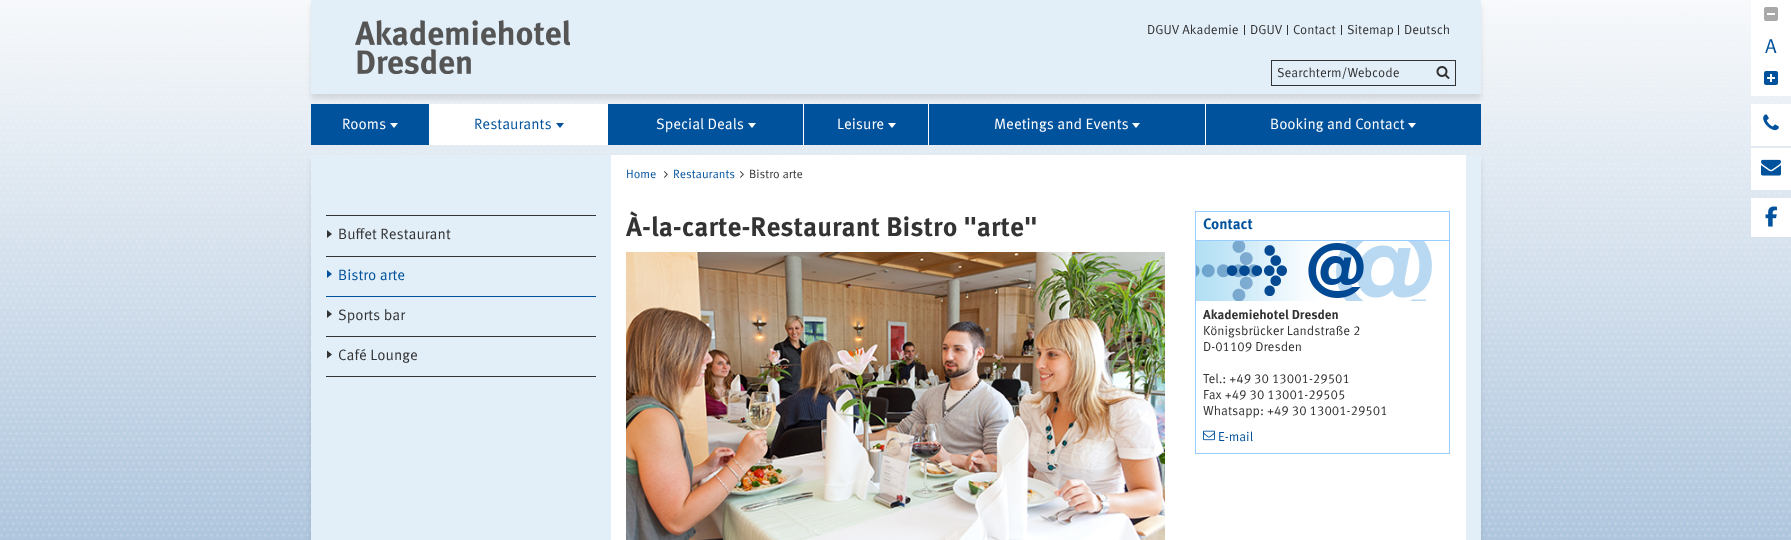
async function draw(canvas) {
  canvas.width = 1791;
  canvas.height = 540;
  const ctx = canvas.getContext('2d');
  ctx.miterLimit = 4;
  ctx.fontKerning = 'normal';
  function label(s, x, y, font, color) {
    ctx.font = font;
    ctx.fillStyle = color;
    ctx.fillText(s, x, y);
  }
  function rect(x, y, w, h, color) {
    ctx.fillStyle = color;
    ctx.fillRect(x, y, w, h);
  }
  function roundedRect(x, y, w, h, r, color) {
    ctx.fillStyle = color;
    ctx.beginPath();
    ctx.roundRect(x, y, w, h, r);
    ctx.fill();
  }
  async function image(src, x, y, w, h) {
    const img = new Image();
    img.src = src;
    await img.decode();
    ctx.drawImage(img, x, y, w, h);
  }
  let path;

  rect(0, 0, 1791, 540, '#fff');
  await image('assets/img1.png', 0, 0, 1791, 540);
  ctx.fillStyle = '#0000001a';
  ctx.filter = 'blur(2.5px)';
  ctx.beginPath();
  ctx.rect(311, 5, 1170, 94);
  ctx.fill();
  ctx.filter = 'none';
  rect(311, 0, 1170, 94, '#e2eef8');
  await image('assets/img2.png', 355, 20, 215, 54);
  rect(1244, 25, 1, 10, '#333');
  label('DGUV Akademie', 1147, 34, '13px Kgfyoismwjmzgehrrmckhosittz', '#333');
  rect(1287, 25, 1, 10, '#333');
  label('DGUV', 1250, 34, '13px Kgfyoismwjmzgehrrmckhosittz', '#333');
  rect(1341, 25, 1, 10, '#333');
  label('Contact', 1293, 34, '13px Kgfyoismwjmzgehrrmckhosittz', '#333');
  rect(1398, 25, 1, 10, '#333');
  label('Sitemap', 1347, 34, '13px Kgfyoismwjmzgehrrmckhosittz', '#333');
  label('Deutsch', 1404, 34, '13px Kgfyoismwjmzgehrrmckhosittz', '#333');
  rect(1751, 0, 40, 96, '#fff');
  roundedRect(1764, 7, 14, 14, 2, '#a9a9a9');
  rect(1767, 13, 8, 2, '#fff');
  label('A', 1765, 53, '20px Kgfyoismwjmzgehrrmckhosittz', '#00529c');
  roundedRect(1764, 71, 14, 14, 2, '#00529c');
  rect(1767, 77, 8, 2, '#fff');
  rect(1770, 74, 2, 8, '#fff');
  rect(1751, 104, 40, 42, '#fff');
  await image('assets/img3.png', 1763, 114, 16, 17);
  rect(1751, 148, 40, 42, '#fff');
  await image('assets/img4.png', 1761, 159, 20, 17);
  rect(1751, 198, 40, 39, '#fff');
  await image('assets/img5.png', 1765, 206, 12, 21);
  ctx.strokeStyle = '#333';
  ctx.strokeRect(1271.5, 60.5, 184, 25);
  label('Searchterm/Webcode', 1277, 77, '13px Kgfyoismwjmzgehrrmckhosittz', '#333');
  await image('assets/img6.png', 1436, 66, 14, 13);
  rect(311, 104, 1170, 41, '#00529c');
  rect(429, 104, 1, 41, '#fff');
  label('Rooms', 342, 129, '15px Kgfyoismwjmzgehrrmckhosittz', '#fff');
  path = new Path2D('M390 123H398L394 128Z');
  ctx.fill(path);
  rect(430, 104, 178, 41, '#fff');
  label('Restaurants', 474, 129, '15px Kgfyoismwjmzgehrrmckhosittz', '#00529c');
  path = new Path2D('M556 123H564L560 128Z');
  ctx.fill(path);
  rect(803, 104, 1, 41, '#fff');
  label('Special Deals', 656, 129, '15px Kgfyoismwjmzgehrrmckhosittz', '#fff');
  path = new Path2D('M748 123H756L752 128Z');
  ctx.fill(path);
  rect(928, 104, 1, 41, '#fff');
  label('Leisure', 837, 129, '15px Kgfyoismwjmzgehrrmckhosittz', '#fff');
  path = new Path2D('M888 123H896L892 128Z');
  ctx.fill(path);
  rect(1205, 104, 1, 41, '#fff');
  label('Meetings and Events', 994, 129, '15px Kgfyoismwjmzgehrrmckhosittz', '#fff');
  path = new Path2D('M1132 123H1140L1136 128Z');
  ctx.fill(path);
  label('Booking and Contact', 1270, 129, '15px Kgfyoismwjmzgehrrmckhosittz', '#fff');
  path = new Path2D('M1408 123H1416L1412 128Z');
  ctx.fill(path);
  ctx.fillStyle = '#0000001a';
  ctx.filter = 'blur(2.5px)';
  ctx.beginPath();
  ctx.rect(311, 160, 1170, 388);
  ctx.fill();
  ctx.filter = 'none';
  rect(311, 155, 1170, 385, '#e2eef8');
  rect(326, 215, 270, 1, '#333');
  rect(326, 256, 270, 1, '#333');
  path = new Path2D('M327 238V230L332 234Z');
  ctx.fill(path);
  label('Buffet Restaurant', 338, 239, '15px Kgfyoismwjmzgehrrmckhosittz', '#333');
  rect(326, 296, 270, 1, '#00529c');
  path = new Path2D('M327 278V270L332 274Z');
  ctx.fill(path);
  label('Bistro arte', 338, 280, '15px Kgfyoismwjmzgehrrmckhosittz', '#00529c');
  rect(326, 336, 270, 1, '#333');
  path = new Path2D('M327 318V310L332 314Z');
  ctx.fill(path);
  label('Sports bar', 338, 320, '15px Kgfyoismwjmzgehrrmckhosittz', '#333');
  rect(326, 376, 270, 1, '#333');
  path = new Path2D('M327 358.5V350.5L332 354.5Z');
  ctx.fill(path);
  label('Café Lounge', 338, 360, '15px Kgfyoismwjmzgehrrmckhosittz', '#333');
  rect(611, 155, 855, 385, '#fff');
  label('Home', 626, 178, '12px Kgfyoismwjmzgehrrmckhosittz', '#00529c');
  await image('assets/img7.png', 664, 171, 4, 7);
  label('Restaurants', 673, 178, '12px Kgfyoismwjmzgehrrmckhosittz', '#00529c');
  await image('assets/img7.png', 740, 171, 4, 7);
  label('Bistro arte', 749, 178, '12px Kgfyoismwjmzgehrrmckhosittz', '#333');
  label('À-la-carte-Restaurant Bistro "arte"', 626, 236, 'bold 27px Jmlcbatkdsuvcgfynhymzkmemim', '#333');
  await image('assets/img8.png', 626, 252, 539, 288);
  ctx.strokeStyle = '#9cf';
  ctx.strokeRect(1195.5, 211.5, 254, 242);
  rect(1196, 240, 253, 1, '#9cf');
  label('Contact', 1203, 229, 'bold 15px Jmlcbatkdsuvcgfynhymzkmemim', '#00529c');
  await image('assets/img9.png', 1196, 241, 236, 60);
  label('Akademiehotel Dresden', 1203, 319, 'bold 13px Jmlcbatkdsuvcgfynhymzkmemim', '#333');
  label('Königsbrücker Landstraße 2', 1203, 335, '13px Kgfyoismwjmzgehrrmckhosittz', '#333');
  label('D-01109 Dresden', 1203, 351, '13px Kgfyoismwjmzgehrrmckhosittz', '#333');
  label('Tel.: +49 30 13001-29501', 1203, 383, '13px Kgfyoismwjmzgehrrmckhosittz', '#333');
  label('Fax +49 30 13001-29505', 1203, 399, '13px Kgfyoismwjmzgehrrmckhosittz', '#333');
  label('Whatsapp: +49 30 13001-29501', 1203, 415, '13px Kgfyoismwjmzgehrrmckhosittz', '#333');
  await image('assets/img10.png', 1203, 430, 12, 11);
  label('E-mail', 1218, 441, '13px Kgfyoismwjmzgehrrmckhosittz', '#00529c');
}

draw(document.querySelector('canvas'));
